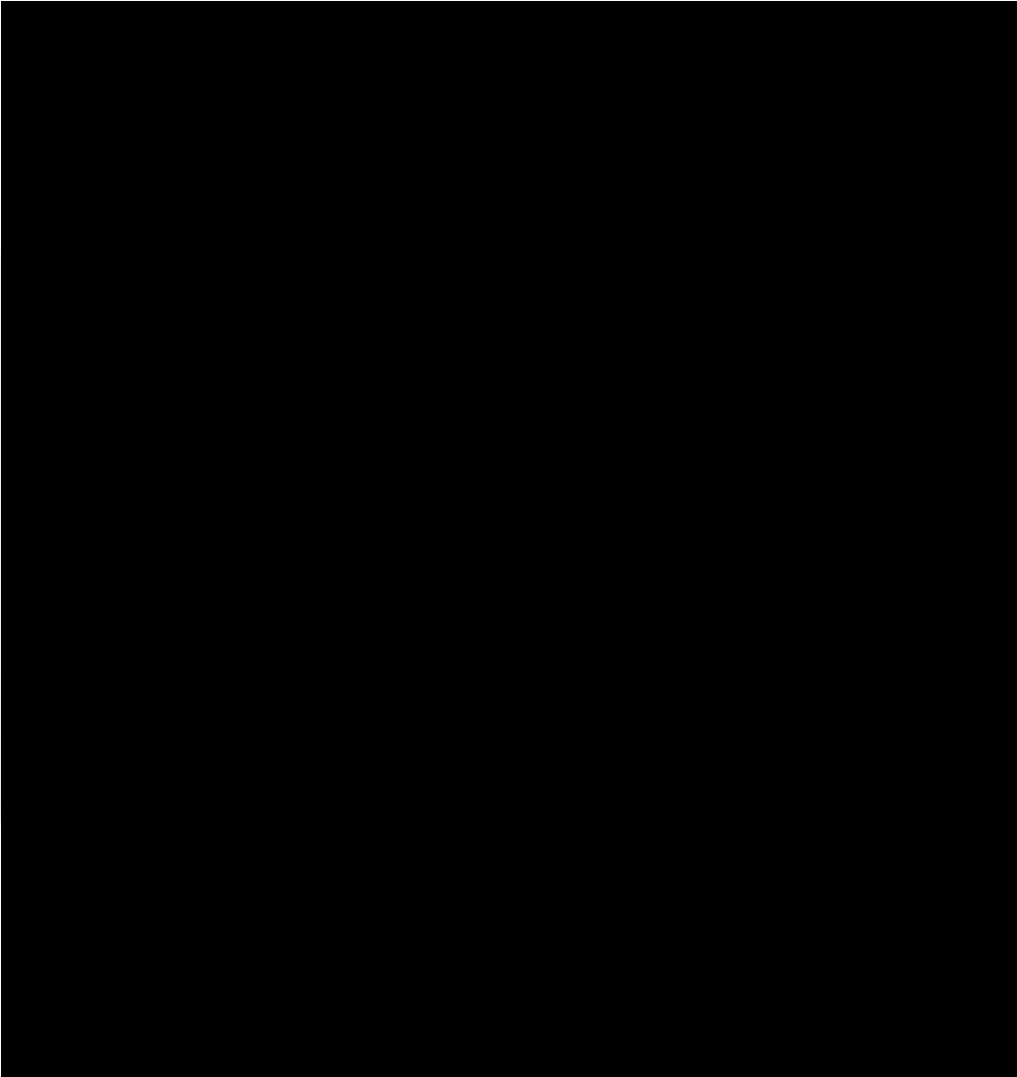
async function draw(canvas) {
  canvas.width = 1017;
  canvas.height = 1077;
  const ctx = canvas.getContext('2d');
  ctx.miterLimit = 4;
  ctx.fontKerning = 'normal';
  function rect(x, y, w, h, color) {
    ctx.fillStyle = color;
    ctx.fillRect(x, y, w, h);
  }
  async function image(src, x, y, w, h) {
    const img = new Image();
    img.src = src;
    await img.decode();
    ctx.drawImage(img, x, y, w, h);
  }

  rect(0, 0, 1017, 1077, '#fff');
  await image('assets/img1.png', 0, 246, 1, 585);
  rect(1, 1, 1016, 1076, '#000');
}

draw(document.querySelector('canvas'));
